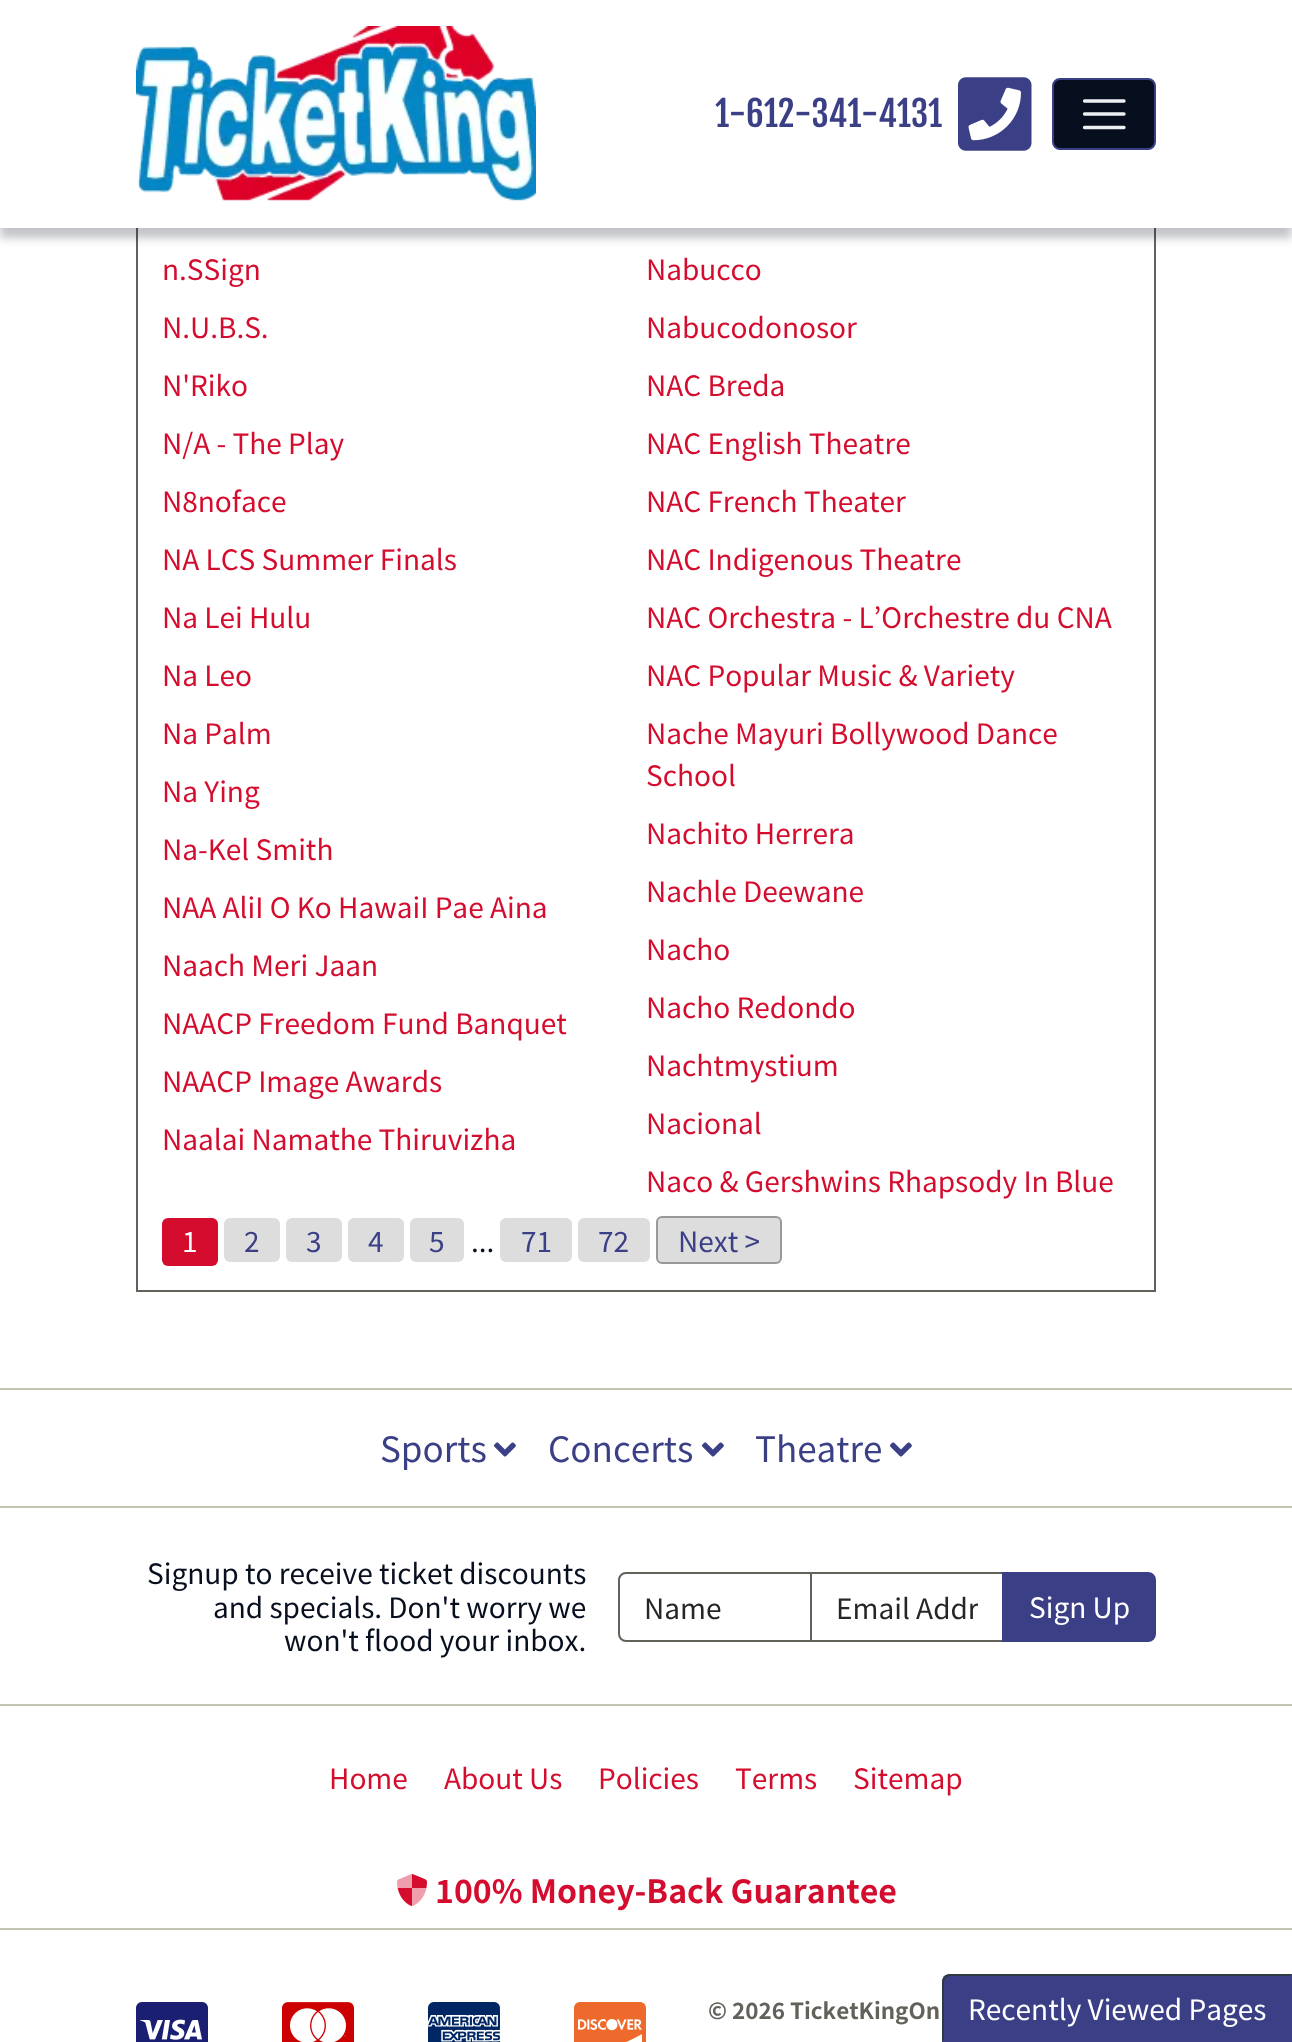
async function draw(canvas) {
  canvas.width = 1292;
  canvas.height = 2042;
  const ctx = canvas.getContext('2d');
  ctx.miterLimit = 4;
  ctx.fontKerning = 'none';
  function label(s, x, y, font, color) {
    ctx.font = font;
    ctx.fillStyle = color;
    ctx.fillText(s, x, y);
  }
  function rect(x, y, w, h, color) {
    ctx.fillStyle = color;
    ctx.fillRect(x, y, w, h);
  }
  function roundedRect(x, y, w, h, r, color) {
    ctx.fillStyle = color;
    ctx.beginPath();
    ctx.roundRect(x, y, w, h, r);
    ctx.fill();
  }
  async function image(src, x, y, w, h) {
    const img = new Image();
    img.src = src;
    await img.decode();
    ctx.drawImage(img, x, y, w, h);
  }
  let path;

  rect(0, 0, 1292, 2042, '#fff');
  ctx.strokeStyle = '#62625a';
  ctx.lineWidth = 2;
  ctx.strokeRect(137, -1, 1018, 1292);
  ctx.fillStyle = '#070f1e40';
  ctx.filter = 'blur(5px)';
  ctx.beginPath();
  ctx.rect(0, 10, 1292, 228);
  ctx.fill();
  ctx.filter = 'none';
  rect(0, 0, 1292, 228, '#fff');
  await image('assets/img1.png', 136, 26, 400, 175);
  label('1-612-341-4131', 715, 127, '35px Fjalla One', '#3a3f86');
  await image('assets/img2.png', 958, 77, 74, 74);
  ctx.fillStyle = '#070f1e';
  ctx.beginPath();
  ctx.roundRect(1053, 79, 102, 70, 7);
  ctx.fill();
  ctx.strokeStyle = '#3a3f86';
  ctx.stroke();
  path = new Path2D('M1084.5 101H1124M1084.5 114H1124M1084.5 127.5H1124');
  ctx.strokeStyle = '#eef0f2';
  ctx.lineWidth = 3.3;
  ctx.lineCap = 'round';
  ctx.stroke(path);
  label('n.SSign', 162, 280, '28px Noto Sans JP', '#d40d2f');
  label('N.U.B.S.', 162, 338, '28px Noto Sans JP', '#d40d2f');
  label('N\'Riko', 162, 396, '28px Noto Sans JP', '#d40d2f');
  label('N/A - The Play', 162, 454, '28px Noto Sans JP', '#d40d2f');
  label('N8noface', 162, 512, '28px Noto Sans JP', '#d40d2f');
  label('NA LCS Summer Finals', 162, 570, '28px Noto Sans JP', '#d40d2f');
  label('Na Lei Hulu', 162, 628, '28px Noto Sans JP', '#d40d2f');
  label('Na Leo', 162, 686, '28px Noto Sans JP', '#d40d2f');
  label('Na Palm', 162, 744, '28px Noto Sans JP', '#d40d2f');
  label('Na Ying', 162, 802, '28px Noto Sans JP', '#d40d2f');
  label('Na-Kel Smith', 162, 860, '28px Noto Sans JP', '#d40d2f');
  label('NAA AliI O Ko HawaiI Pae Aina', 162, 918, '28px Noto Sans JP', '#d40d2f');
  label('Naach Meri Jaan', 162, 976, '28px Noto Sans JP', '#d40d2f');
  label('NAACP Freedom Fund Banquet', 162, 1034, '28px Noto Sans JP', '#d40d2f');
  label('NAACP Image Awards', 162, 1092, '28px Noto Sans JP', '#d40d2f');
  label('Naalai Namathe Thiruvizha', 162, 1150, '28px Noto Sans JP', '#d40d2f');
  label('Nabucco', 646, 280, '28px Noto Sans JP', '#d40d2f');
  label('Nabucodonosor', 646, 338, '28px Noto Sans JP', '#d40d2f');
  label('NAC Breda', 646, 396, '28px Noto Sans JP', '#d40d2f');
  label('NAC English Theatre', 646, 454, '28px Noto Sans JP', '#d40d2f');
  label('NAC French Theater', 646, 512, '28px Noto Sans JP', '#d40d2f');
  label('NAC Indigenous Theatre', 646, 570, '28px Noto Sans JP', '#d40d2f');
  label('NAC Orchestra - L’Orchestre', 646, 628, '28px Noto Sans JP', '#d40d2f');
  label('du CNA', 1016, 628, '28px Noto Sans JP', '#d40d2f');
  label('NAC Popular Music & Variety', 646, 686, '28px Noto Sans JP', '#d40d2f');
  label('Nache Mayuri Bollywood Dance', 646, 744, '28px Noto Sans JP', '#d40d2f');
  label('School', 646, 786, '28px Noto Sans JP', '#d40d2f');
  label('Nachito Herrera', 646, 844, '28px Noto Sans JP', '#d40d2f');
  label('Nachle Deewane', 646, 902, '28px Noto Sans JP', '#d40d2f');
  label('Nacho', 646, 960, '28px Noto Sans JP', '#d40d2f');
  label('Nacho Redondo', 646, 1018, '28px Noto Sans JP', '#d40d2f');
  label('Nachtmystium', 646, 1076, '28px Noto Sans JP', '#d40d2f');
  label('Nacional', 646, 1134, '28px Noto Sans JP', '#d40d2f');
  label('Naco & Gershwins Rhapsody In Blue', 646, 1192, '28px Noto Sans JP', '#d40d2f');
  roundedRect(162, 1218, 56, 48, 6, '#d40d2f');
  label('1', 182, 1252, '28px Noto Sans JP', '#fff');
  roundedRect(224, 1218, 56, 44, 6, '#ddd');
  label('2', 244, 1252, '28px Noto Sans JP', '#3a3f86');
  roundedRect(286, 1218, 56, 44, 6, '#ddd');
  label('3', 306, 1252, '28px Noto Sans JP', '#3a3f86');
  roundedRect(348, 1218, 56, 44, 6, '#ddd');
  label('4', 368, 1252, '28px Noto Sans JP', '#3a3f86');
  roundedRect(410, 1218, 54, 44, 6, '#ddd');
  label('5', 429, 1252, '28px Noto Sans JP', '#3a3f86');
  label('...', 471, 1252, '28px Noto Sans JP', '#070f1e');
  roundedRect(500, 1218, 72, 44, 6, '#ddd');
  label('71', 521, 1252, '28px Noto Sans JP', '#3a3f86');
  roundedRect(578, 1218, 72, 44, 6, '#ddd');
  label('72', 598, 1252, '28px Noto Sans JP', '#3a3f86');
  ctx.fillStyle = '#ddd';
  ctx.beginPath();
  ctx.roundRect(657, 1217, 124, 46, 5);
  ctx.fill();
  ctx.strokeStyle = '#999';
  ctx.lineWidth = 2;
  ctx.stroke();
  label('Next >', 678, 1252, '28px Noto Sans JP', '#3a3f86');
  rect(0, 1388, 1292, 2, '#c5c3b4');
  rect(0, 1506, 1292, 2, '#c5c3b4');
  label('Sports', 380, 1462, '35px Noto Sans JP', '#3a3f86');
  await image('assets/img3.png', 494, 1442, 22, 15);
  label('Concerts', 548, 1462, '35px Noto Sans JP', '#3a3f86');
  await image('assets/img3.png', 702, 1442, 22, 15);
  label('Theatre', 755, 1462, '35px Noto Sans JP', '#3a3f86');
  await image('assets/img3.png', 890, 1442, 22, 15);
  rect(0, 1704, 1292, 2, '#c5c3b4');
  label('Signup to receive ticket discounts', 147, 1584, '28px Noto Sans JP', '#070f1e');
  label('and specials. Don\'t worry we', 213, 1618, '28px Noto Sans JP', '#070f1e');
  label('won\'t flood your inbox.', 284, 1651, '28px Noto Sans JP', '#070f1e');
  ctx.beginPath();
  ctx.roundRect(619, 1573, 192, 68, [7, 0, 0, 7]);
  ctx.strokeStyle = '#62625a';
  ctx.stroke();
  label('Name', 644, 1619, '28px Noto Sans JP', '#272624');
  ctx.strokeRect(811, 1573, 192, 68);
  ctx.save();
  ctx.beginPath();
  ctx.rect(836, 1586, 142, 40);
  ctx.clip();
  label('Email Addr', 836, 1619, '28px Noto Sans JP', '#272624');
  ctx.restore();
  ctx.fillStyle = '#3a3f86';
  ctx.beginPath();
  ctx.roundRect(1003, 1573, 152, 68, [0, 7, 7, 0]);
  ctx.fill();
  ctx.strokeStyle = '#3a3f86';
  ctx.stroke();
  label('Sign Up', 1029, 1618, '28px Noto Sans JP', '#fff');
  rect(0, 1928, 1292, 2, '#c5c3b4');
  label('Home', 329, 1789, '28px Noto Sans JP', '#d40d2f');
  label('About Us', 444, 1789, '28px Noto Sans JP', '#d40d2f');
  label('Policies', 598, 1789, '28px Noto Sans JP', '#d40d2f');
  label('Terms', 735, 1789, '28px Noto Sans JP', '#d40d2f');
  label('Sitemap', 853, 1789, '28px Noto Sans JP', '#d40d2f');
  await image('assets/img4.png', 397, 1874, 30, 32);
  label('100% Money-Back Guarantee', 435, 1903, 'bold 32px Noto Sans JP', '#d40d2f');
  await image('assets/img5.png', 136, 2002, 72, 40);
  await image('assets/img6.png', 282, 2002, 72, 40);
  await image('assets/img7.png', 427, 2002, 73, 40);
  await image('assets/img8.png', 574, 2002, 72, 40);
  label('© 2026 TicketKingOn', 708, 2019, 'bold 22.4px Noto Sans JP', '#62625a');
  ctx.fillStyle = '#3a3f86';
  ctx.beginPath();
  ctx.roundRect(942, 1974, 350, 68, [8, 0, 0, 0]);
  ctx.fill();
  ctx.fillStyle = '#2d3a42';
  path = new Path2D('M950 1974C948 1974 946 1975 944 1976L946 1978C947 1977 948 1976 950 1976H1290L1292 1974Z');
  ctx.fill(path);
  path = new Path2D('M942 2042L944 2040V1982C944 1980 945 1979 946 1978L944 1976C943 1978 942 1980 942 1982Z');
  ctx.fill(path);
  label('Recently Viewed Pages', 968, 2020, '28px Noto Sans JP', '#fff');
}

draw(document.querySelector('canvas'));
